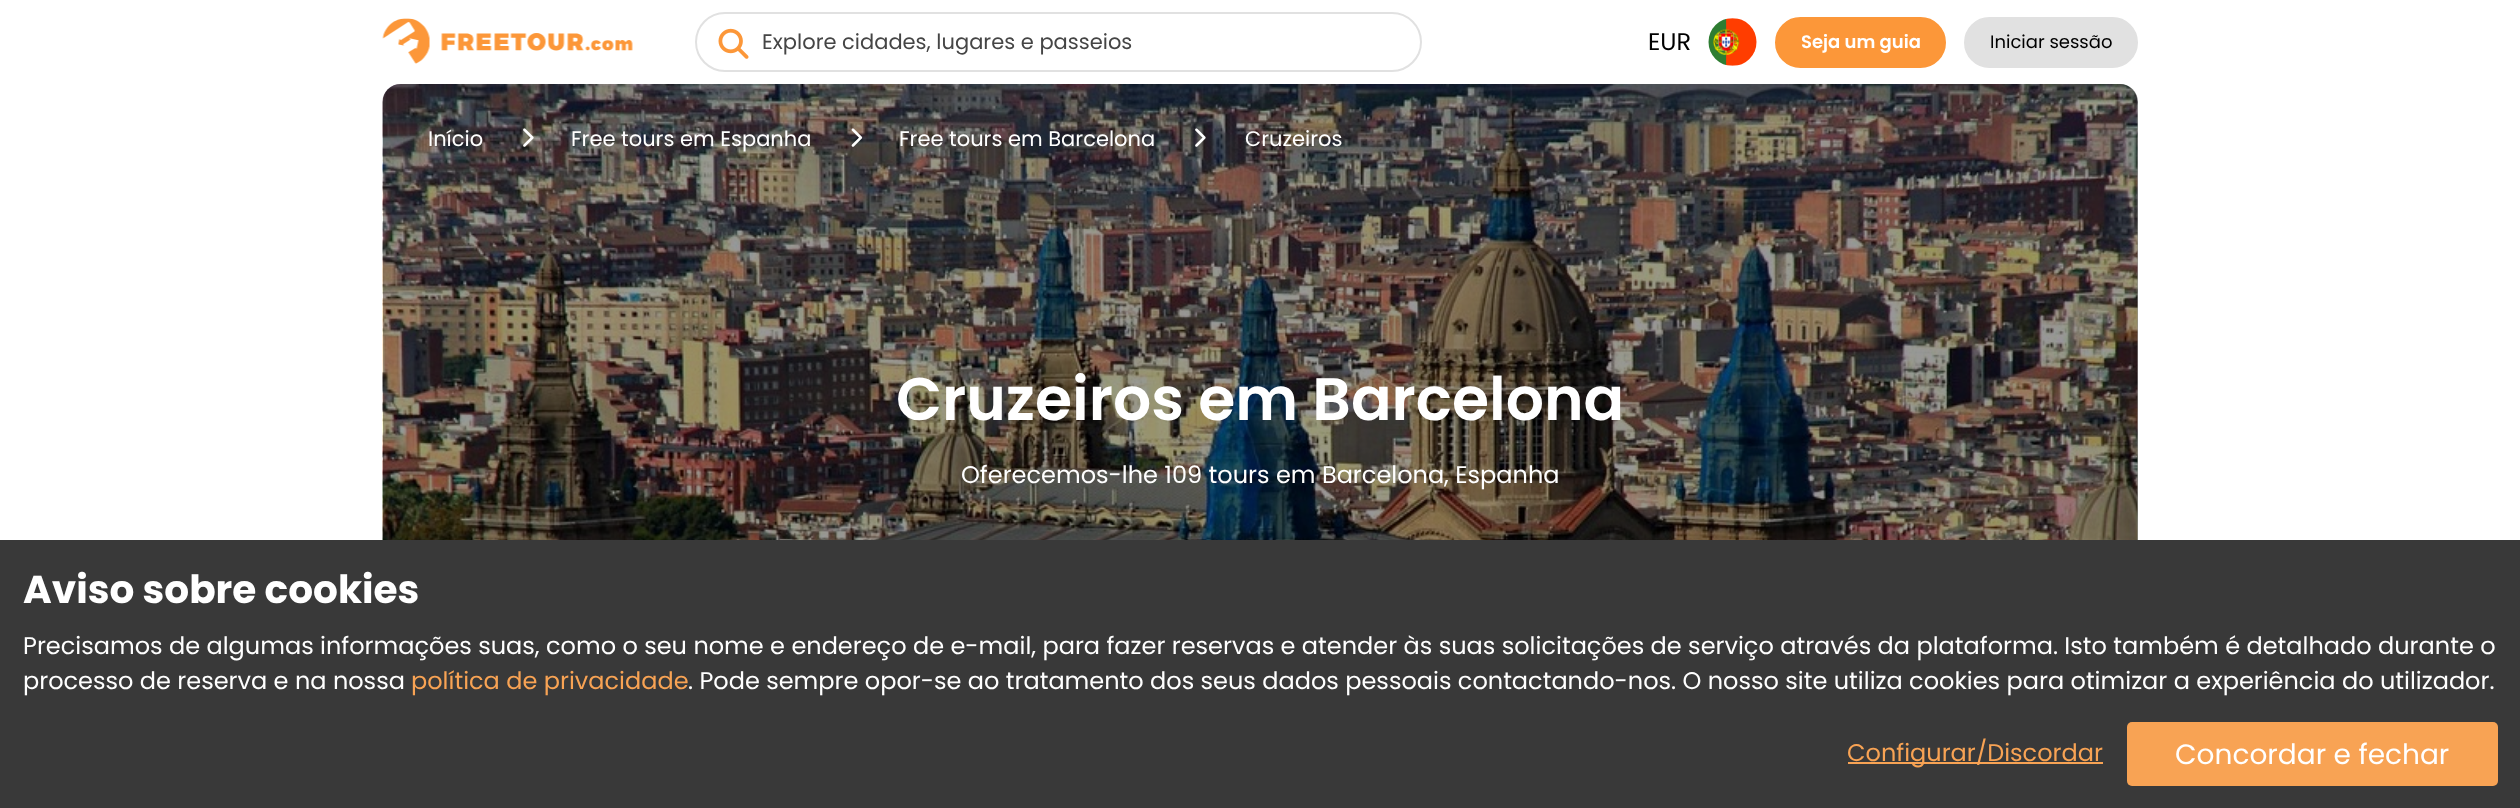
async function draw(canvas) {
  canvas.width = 2520;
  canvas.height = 808;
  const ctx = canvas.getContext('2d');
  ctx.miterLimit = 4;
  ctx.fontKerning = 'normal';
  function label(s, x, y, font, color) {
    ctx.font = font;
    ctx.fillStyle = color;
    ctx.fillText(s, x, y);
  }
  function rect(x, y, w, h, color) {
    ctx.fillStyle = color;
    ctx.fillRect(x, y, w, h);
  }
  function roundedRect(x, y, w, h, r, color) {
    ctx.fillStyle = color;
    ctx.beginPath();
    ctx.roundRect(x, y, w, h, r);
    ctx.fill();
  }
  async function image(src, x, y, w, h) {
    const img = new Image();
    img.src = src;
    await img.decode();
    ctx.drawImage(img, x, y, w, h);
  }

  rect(0, 0, 2520, 808, '#fff');
  await image('assets/img1.png', 382, 18, 251, 46);
  ctx.beginPath();
  ctx.roundRect(696, 13, 725, 58, 29);
  ctx.strokeStyle = '#e1e1e1';
  ctx.lineWidth = 2;
  ctx.stroke();
  await image('assets/img2.png', 718, 28, 31, 31);
  label('Explore cidades, lugares e passeios', 762, 49, '21px Poppins', '#454545');
  label('EUR', 1648, 50, '24px Poppins', '#000');
  await image('assets/img3.png', 1708, 18, 49, 48);
  ctx.fillStyle = '#fc9739';
  ctx.beginPath();
  ctx.roundRect(1776, 18, 169, 49, 24.5);
  ctx.fill();
  ctx.strokeStyle = '#fc9739';
  ctx.stroke();
  label('Seja um guia', 1801, 48, '600 18px Poppins', '#fff');
  ctx.fillStyle = '#e1e1e1';
  ctx.beginPath();
  ctx.roundRect(1965, 18, 172, 49, 24.5);
  ctx.fill();
  ctx.strokeStyle = '#e1e1e1';
  ctx.stroke();
  label('Iniciar sessão', 1990, 48, '18px Poppins', '#000');
  await image('assets/img4.png', 382, 84, 1756, 456);
  roundedRect(383, 84, 1755, 630, 18, '#00000066');
  label('Início', 428, 146, '21px Poppins', '#fff');
  await image('assets/img5.png', 523, 128, 11, 19);
  label('Free tours em Espanha', 571, 146, '21px Poppins', '#fff');
  await image('assets/img6.png', 851, 128, 12, 19);
  label('Free tours em Barcelona', 899, 146, '21px Poppins', '#fff');
  await image('assets/img7.png', 1195, 128, 11, 19);
  label('Cruzeiros', 1245, 146, '21px Poppins', '#fff');
  label('Cruzeiros em Barcelona', 896, 420, '600 60px Poppins', '#fff');
  label('Oferecemos-lhe 109 tours em Barcelona, Espanha', 961, 483, '24px Poppins', '#fff');
  rect(0, 540, 2520, 268, '#393939');
  label('Aviso sobre cookies', 23, 603, 'bold 39px Poppins', '#fff');
  label('Precisamos de algumas informações suas, como o seu nome e endereço de e-mail, para fazer reservas e atender às suas solicitações de serviço através da plataforma. Isto também é detalhado durante o', 23, 654, '24px Poppins', '#fff');
  label('processo de reserva e na nossa', 23, 689, '24px Poppins', '#fff');
  label('política de privacidade', 411, 689, '24px Poppins', '#f8a354');
  label('. Pode sempre opor-se ao tratamento dos seus dados pessoais contactando-nos. O nosso site utiliza cookies para otimizar a experiência do utilizador.', 688, 689, '24px Poppins', '#fff');
  rect(1848, 762, 255, 2, '#f8a354');
  label('Configurar/Discordar', 1847, 761, '24px Poppins', '#f8a354');
  roundedRect(2127, 722, 371, 64, 5, '#f8a354');
  label('Concordar e fechar', 2175, 764, '28px Poppins', '#fff');
}

draw(document.querySelector('canvas'));
